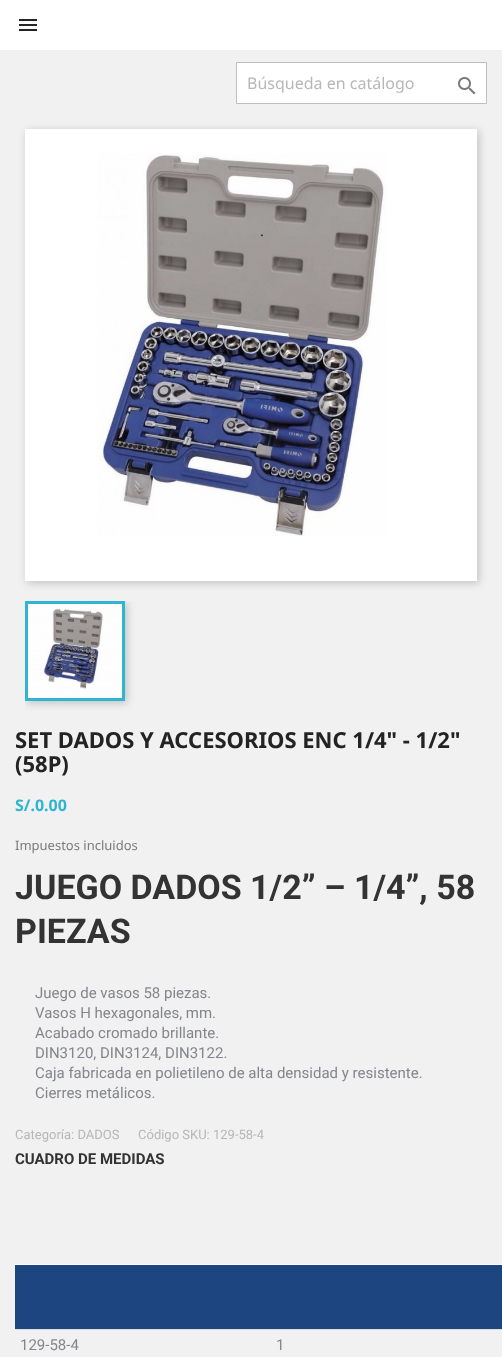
async function draw(canvas) {
  canvas.width = 502;
  canvas.height = 1357;
  const ctx = canvas.getContext('2d');
  ctx.miterLimit = 4;
  ctx.fontKerning = 'normal';
  function label(s, x, y, font, color) {
    ctx.font = font;
    ctx.fillStyle = color;
    ctx.fillText(s, x, y);
  }
  function rect(x, y, w, h, color) {
    ctx.fillStyle = color;
    ctx.fillRect(x, y, w, h);
  }
  async function image(src, x, y, w, h) {
    const img = new Image();
    img.src = src;
    await img.decode();
    ctx.drawImage(img, x, y, w, h);
  }

  rect(0, 0, 502, 1357, '#f1f1f1');
  rect(0, 0, 502, 50, '#fff');
  await image('assets/img1.png', 19, 19, 18, 12);
  ctx.beginPath();
  ctx.rect(236.5, 62.5, 250, 41);
  ctx.fill();
  ctx.strokeStyle = '#bfbfbf';
  ctx.stroke();
  label('Búsqueda en catálogo', 247, 89, '16px Noto Sans', '#b7b7b7');
  await image('assets/img2.png', 458, 77, 18, 18);
  ctx.fillStyle = '#00000033';
  ctx.filter = 'blur(4px)';
  ctx.beginPath();
  ctx.rect(27, 131, 452, 452);
  ctx.fill();
  ctx.filter = 'none';
  rect(25, 129, 452, 452, '#fff');
  await image('assets/img3.png', 97, 153, 290, 383);
  ctx.save();
  ctx.beginPath();
  ctx.rect(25, 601, 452, 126);
  ctx.clip();
  ctx.fillStyle = '#00000033';
  ctx.filter = 'blur(4px)';
  ctx.beginPath();
  ctx.rect(27, 603, 100, 100);
  ctx.fill();
  ctx.filter = 'none';
  ctx.restore();
  ctx.strokeStyle = '#2fb5d2';
  ctx.lineWidth = 3;
  ctx.strokeRect(26.5, 602.5, 97, 97);
  await image('assets/img4.png', 28, 604, 94, 94);
  label('SET DADOS Y ACCESORIOS ENC 1/4" - 1/2"', 15, 748, 'bold 22px Noto Sans', '#232323');
  label('(58P)', 15, 772, 'bold 22px Noto Sans', '#232323');
  label('S/.0.00', 15, 811, 'bold 16px Noto Sans', '#2fb5d2');
  label('Impuestos incluidos', 15, 850, '13px Noto Sans', '#7a7a7a');
  label('JUEGO DADOS 1/2” – 1/4”, 58', 15, 899, 'bold 34px Roboto', '#333');
  label('PIEZAS', 15, 943, 'bold 34px Roboto', '#333');
  label('Juego de vasos 58 piezas.', 35, 998, '15px Roboto', '#85868c');
  label('Vasos H hexagonales, mm.', 35, 1018, '15px Roboto', '#85868c');
  label('Acabado cromado brillante.', 35, 1038, '15px Roboto', '#85868c');
  label('DIN3120, DIN3124, DIN3122.', 35, 1058, '15px Roboto', '#85868c');
  label('Caja fabricada en polietileno de alta densidad y resistente.', 35, 1078, '15px Roboto', '#85868c');
  label('Cierres metálicos.', 35, 1098, '15px Roboto', '#85868c');
  label('Categoría: DADOS', 15, 1139, '13px Roboto', '#b7b7b7');
  label('Código SKU: 129-58-4', 138, 1139, '13px Roboto', '#b7b7b7');
  label('CUADRO DE MEDIDAS', 15, 1164, 'bold 15px Roboto', '#333');
  rect(15, 1264, 487, 1, '#fff');
  rect(15, 1329, 487, 1, '#ddd');
  rect(15, 1265, 487, 64, '#1d457f');
  label('129-58-4', 20, 1350, '15px Roboto', '#85868c');
  label('1', 276, 1350, '15px Roboto', '#85868c');
}

draw(document.querySelector('canvas'));
